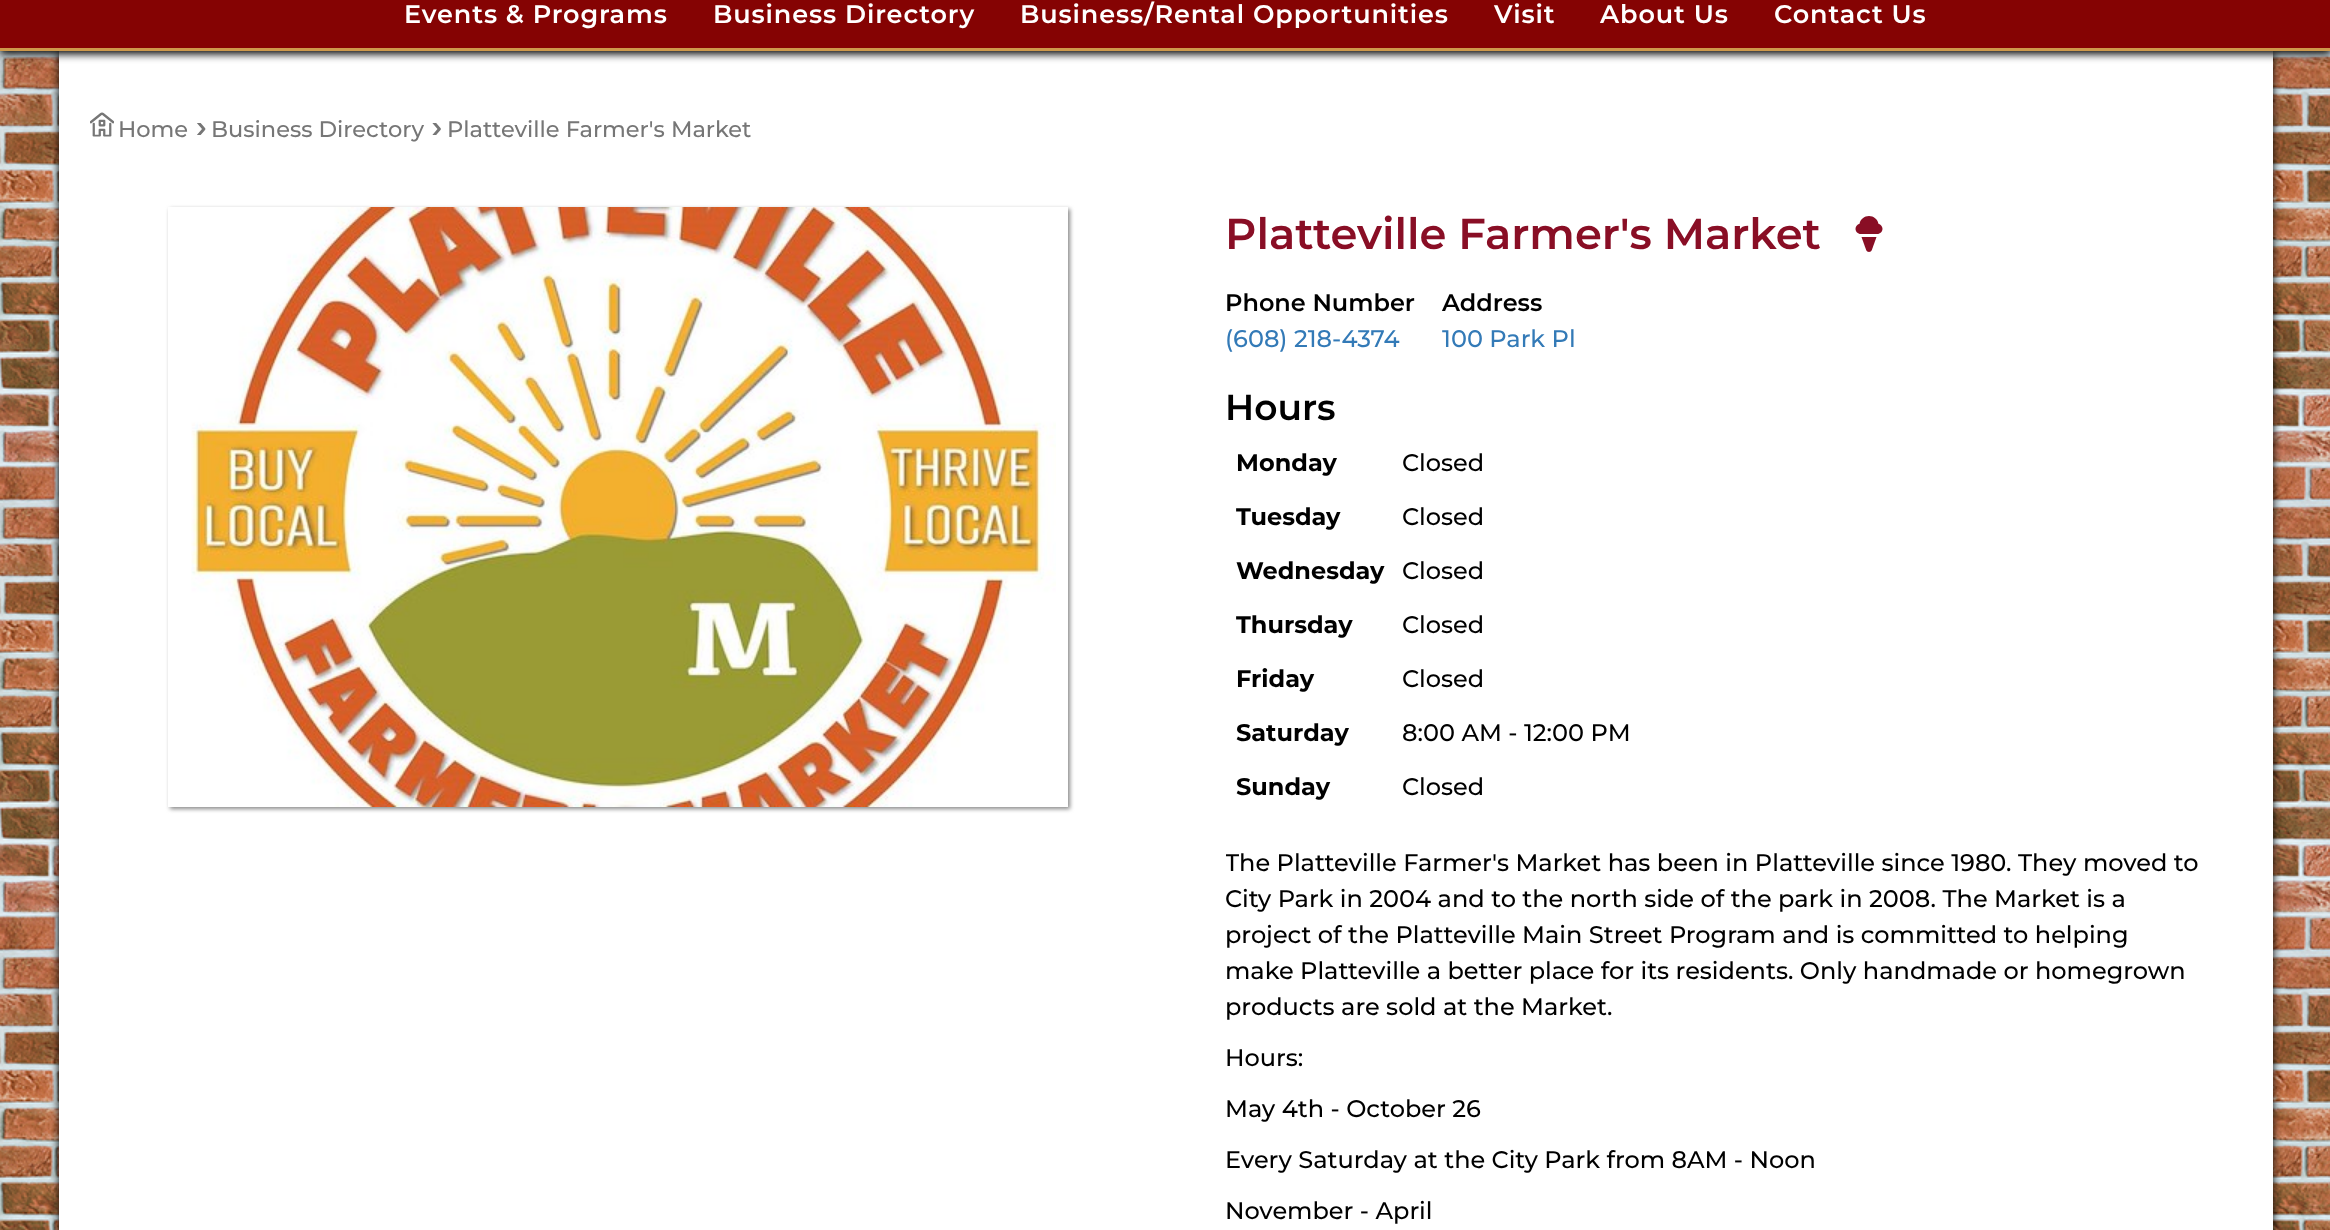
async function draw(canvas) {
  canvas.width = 2330;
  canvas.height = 1230;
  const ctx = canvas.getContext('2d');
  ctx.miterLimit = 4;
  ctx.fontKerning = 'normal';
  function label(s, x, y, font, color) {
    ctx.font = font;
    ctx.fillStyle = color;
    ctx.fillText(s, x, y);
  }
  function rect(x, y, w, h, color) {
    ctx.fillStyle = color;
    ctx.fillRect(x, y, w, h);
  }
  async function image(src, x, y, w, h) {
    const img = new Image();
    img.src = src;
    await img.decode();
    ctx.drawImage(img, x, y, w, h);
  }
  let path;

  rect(0, 0, 2330, 1230, '#fff');
  await image('assets/img1.png', 0, 51, 2330, 1179);
  ctx.fillStyle = '#000';
  ctx.filter = 'blur(4px)';
  ctx.beginPath();
  ctx.rect(59, 51, 2214, 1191);
  ctx.fill();
  ctx.filter = 'none';
  rect(59, 51, 2214, 1179, '#fff');
  ctx.fillStyle = '#000';
  ctx.filter = 'blur(4px)';
  ctx.beginPath();
  ctx.rect(0, -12, 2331, 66);
  ctx.fill();
  ctx.filter = 'none';
  rect(0, 0, 2330, 48, '#850303');
  rect(0, 48, 2330, 3, '#ce994b');
  ctx.letterSpacing = '0.9px';
  label('Events & Programs', 404, 23, '600 25.5px Montserrat', '#fff');
  label('Business Directory', 713, 23, '600 25.5px Montserrat', '#fff');
  label('Business/Rental Opportunities', 1020, 23, '600 25.5px Montserrat', '#fff');
  label('Visit', 1494, 23, '600 25.5px Montserrat', '#fff');
  label('About Us', 1600, 23, '600 25.5px Montserrat', '#fff');
  label('Contact Us', 1774, 23, '600 25.5px Montserrat', '#fff');
  await image('assets/img2.png', 90, 112, 24, 25);
  ctx.letterSpacing = '0px';
  label('Home', 118, 137, '500 22.5px Montserrat', '#767676');
  ctx.save();
  ctx.beginPath();
  ctx.rect(192, 123, 15, 12);
  ctx.clip();
  path = new Path2D('M195 141.5L193 139.5L202 129L193 118.5L195 116.5L205 128C205.5 128.5 205.5 129.5 205 130Z');
  ctx.fill(path);
  ctx.restore();
  label('Business Directory', 211, 137, '500 22.5px Montserrat', '#767676');
  ctx.save();
  ctx.beginPath();
  ctx.rect(428, 123, 15, 12);
  ctx.clip();
  path = new Path2D('M430.5 141.5L428.5 139.5L437.5 129L428.5 118.5L430.5 116.5L440.5 128C441 128.5 441 129.5 440.5 130Z');
  ctx.fill(path);
  ctx.restore();
  label('Platteville Farmer\'s Market', 447, 137, '500 22.5px Montserrat', '#767676');
  ctx.save();
  path = new Path2D('M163 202H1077V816H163ZM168 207H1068V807H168Z');
  ctx.clip(path, 'evenodd');
  ctx.fillStyle = '#888';
  ctx.filter = 'blur(2px)';
  ctx.beginPath();
  ctx.rect(170, 209, 900, 600);
  ctx.fill();
  ctx.filter = 'none';
  ctx.restore();
  await image('assets/img3.png', 191, 207, 865, 600);
  label('Platteville Farmer\'s Market', 1225, 249, '600 43.25px Montserrat', '#890e25');
  await image('assets/img4.png', 1855, 216, 28, 36);
  label('Phone Number', 1225, 311, '600 24px Montserrat', '#000');
  label('(608) 218-4374', 1225, 347, '500 24px Montserrat', '#337ab7');
  label('Address', 1442, 311, '600 24px Montserrat', '#000');
  label('100 Park Pl', 1442, 347, '500 24px Montserrat', '#337ab7');
  label('Hours', 1225, 420, '600 36px Montserrat', '#000');
  label('Monday', 1236, 471, 'bold 24px Montserrat', '#000');
  label('Closed', 1402, 471, '500 24px Montserrat', '#000');
  label('Tuesday', 1236, 525, 'bold 24px Montserrat', '#000');
  label('Closed', 1402, 525, '500 24px Montserrat', '#000');
  label('Wednesday', 1236, 579, 'bold 24px Montserrat', '#000');
  label('Closed', 1402, 579, '500 24px Montserrat', '#000');
  label('Thursday', 1236, 633, 'bold 24px Montserrat', '#000');
  label('Closed', 1402, 633, '500 24px Montserrat', '#000');
  label('Friday', 1236, 687, 'bold 24px Montserrat', '#000');
  label('Closed', 1402, 687, '500 24px Montserrat', '#000');
  label('Saturday', 1236, 741, 'bold 24px Montserrat', '#000');
  label('8:00 AM - 12:00 PM', 1402, 741, '500 24px Montserrat', '#000');
  label('Sunday', 1236, 795, 'bold 24px Montserrat', '#000');
  label('Closed', 1402, 795, '500 24px Montserrat', '#000');
  ctx.save();
  ctx.beginPath();
  ctx.rect(1226, 831, 975, 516);
  ctx.clip();
  label('The Platteville Farmer\'s Market has been in Platteville since 1980. They moved to', 1225, 871, '500 24px Montserrat', '#000');
  ctx.restore();
  label('City Park in 2004 and to the north side of the park in 2008. The Market is a', 1225, 907, '500 24px Montserrat', '#000');
  label('project of the Platteville Main Street Program and is committed to helping', 1225, 943, '500 24px Montserrat', '#000');
  label('make Platteville a better place for its residents. Only handmade or homegrown', 1225, 979, '500 24px Montserrat', '#000');
  label('products are sold at the Market.', 1225, 1015, '500 24px Montserrat', '#000');
  label('Hours:', 1225, 1066, '500 24px Montserrat', '#000');
  label('May 4th - October 26', 1225, 1117, '500 24px Montserrat', '#000');
  label('Every Saturday at the City Park from 8AM - Noon', 1225, 1168, '500 24px Montserrat', '#000');
  label('November - April', 1225, 1219, '500 24px Montserrat', '#000');
}

draw(document.querySelector('canvas'));
